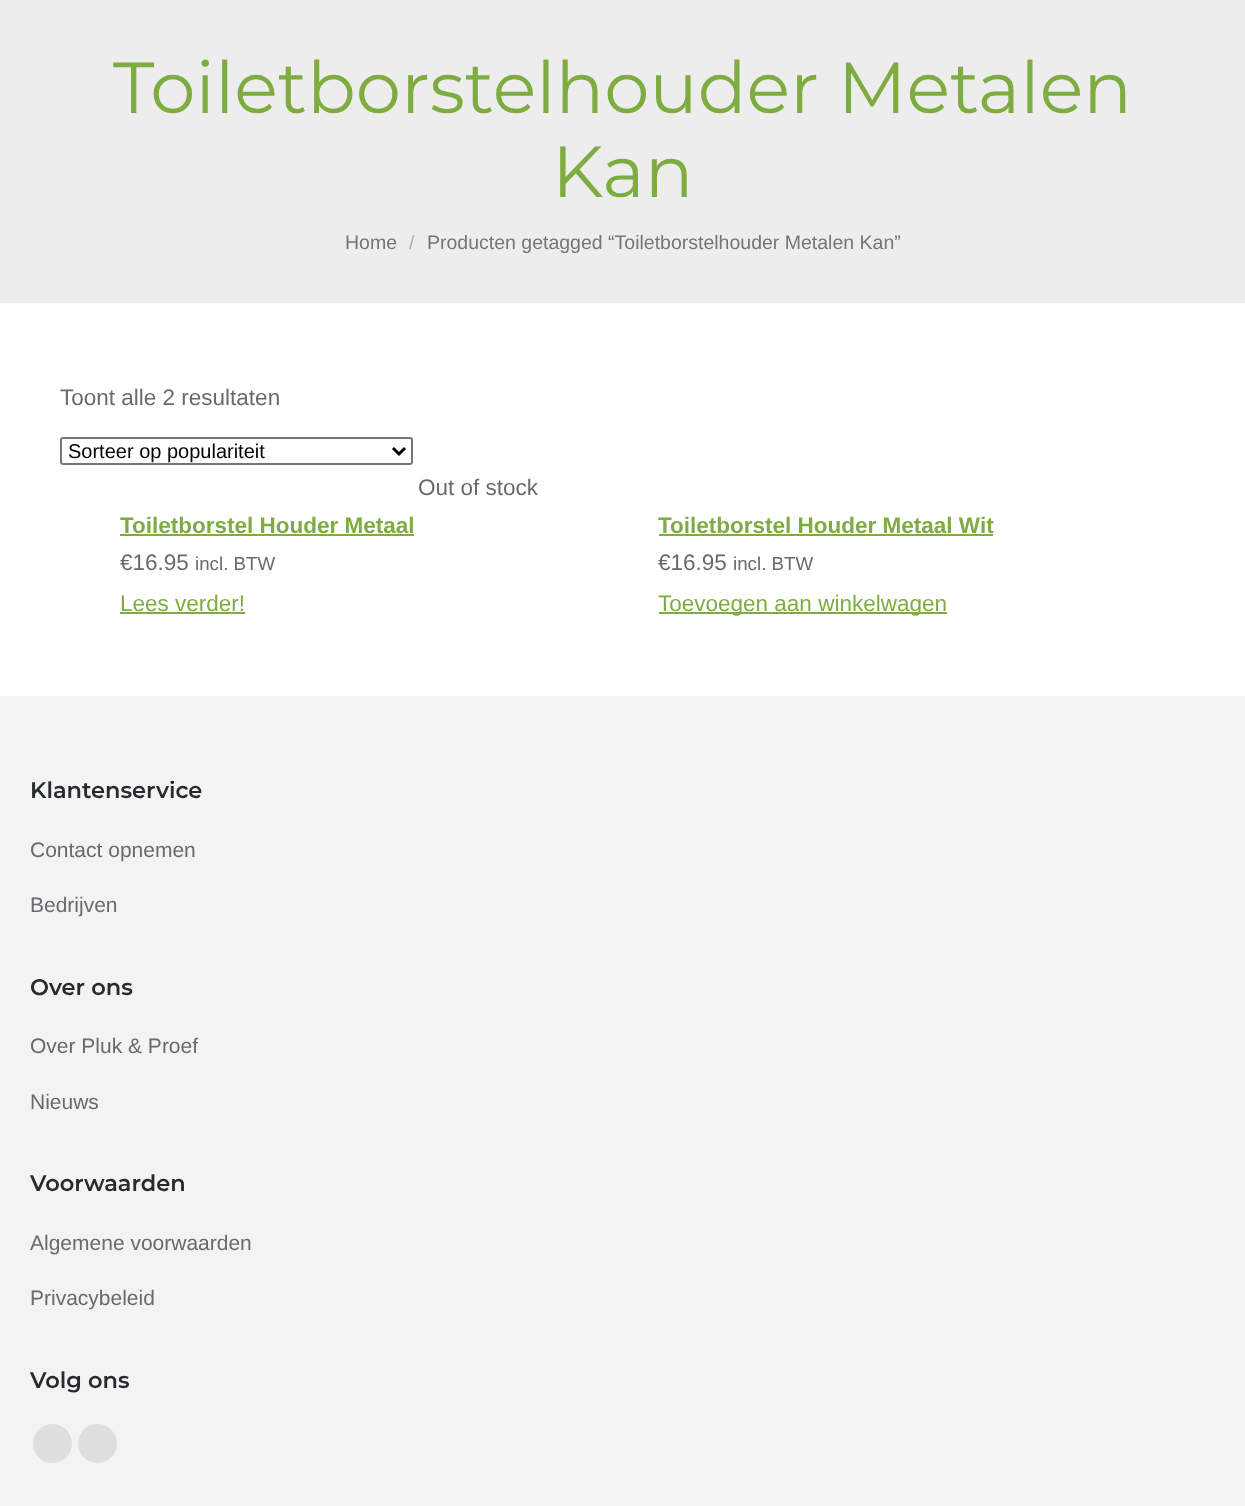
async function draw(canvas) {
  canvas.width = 1245;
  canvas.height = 1506;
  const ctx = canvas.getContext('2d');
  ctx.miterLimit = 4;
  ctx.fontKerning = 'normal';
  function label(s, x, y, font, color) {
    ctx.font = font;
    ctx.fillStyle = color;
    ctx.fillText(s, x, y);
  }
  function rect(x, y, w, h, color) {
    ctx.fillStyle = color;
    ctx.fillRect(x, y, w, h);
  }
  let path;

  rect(0, 0, 1245, 1506, '#fff');
  rect(0, 0, 1245, 303, '#ededed');
  label('Toiletborstelhouder Metalen', 113, 113, '72px Montserrat', '#7fac40');
  label('Kan', 552, 197, '72px Montserrat', '#7fac40');
  label('Home', 345, 249, '19.5px Liberation Sans', '#757575');
  label('/', 409, 249, '19.5px Liberation Sans', '#b1b1b1');
  label('Producten getagged “Toiletborstelhouder Metalen Kan”', 427, 249, '19.5px Liberation Sans', '#757575');
  label('Toont alle 2 resultaten', 60, 405, '22.5px Liberation Sans', '#676b6d');
  ctx.beginPath();
  ctx.roundRect(61, 438, 351, 26, 2);
  ctx.strokeStyle = '#767676';
  ctx.lineWidth = 2;
  ctx.stroke();
  path = new Path2D('M393 448L399 454L405 448');
  ctx.strokeStyle = '#000';
  ctx.lineWidth = 3;
  ctx.stroke(path);
  label('Sorteer op populariteit', 68, 458, '20px Liberation Sans', '#000');
  label('Out of stock', 418, 495, '22.5px Liberation Sans', '#676b6d');
  label('Toiletborstel Houder Metaal', 120, 533, 'bold 22.5px Liberation Sans', '#7fac40');
  rect(120, 534, 294, 2, '#7fac40');
  label('€16.95', 120, 570, '22.5px Liberation Sans', '#676b6d');
  label('incl. BTW', 195, 570, '18.75px Liberation Sans', '#676b6d');
  label('Lees verder!', 120, 611, '22.5px Liberation Sans', '#7fac40');
  rect(120, 612, 125, 2, '#7fac40');
  label('Toiletborstel Houder Metaal Wit', 658, 533, 'bold 22.5px Liberation Sans', '#7fac40');
  rect(659, 534, 334, 2, '#7fac40');
  label('€16.95', 658, 570, '22.5px Liberation Sans', '#676b6d');
  label('incl. BTW', 733, 570, '18.75px Liberation Sans', '#676b6d');
  rect(659, 612, 288, 2, '#7fac40');
  label('Toevoegen aan winkelwagen', 658, 611, '22.5px Liberation Sans', '#7fac40');
  rect(0, 696, 1245, 810, '#f2f3f3');
  label('Klantenservice', 30, 798, '600 22.5px Montserrat', '#262b2e');
  label('Contact opnemen', 30, 857, '21px Liberation Sans', '#676b6d');
  label('Bedrijven', 30, 912, '21px Liberation Sans', '#676b6d');
  label('Over ons', 30, 995, '600 22.5px Montserrat', '#262b2e');
  label('Over Pluk & Proef', 30, 1053, '21px Liberation Sans', '#676b6d');
  label('Nieuws', 30, 1109, '21px Liberation Sans', '#676b6d');
  label('Voorwaarden', 30, 1191, '600 22.5px Montserrat', '#262b2e');
  label('Algemene voorwaarden', 30, 1250, '21px Liberation Sans', '#676b6d');
  label('Privacybeleid', 30, 1305, '21px Liberation Sans', '#676b6d');
  label('Volg ons', 30, 1388, '600 22.5px Montserrat', '#262b2e');
  ctx.fillStyle = '#dddfdf';
  ctx.beginPath();
  ctx.arc(52.5, 1443.5, 19.5, 0, 2 * Math.PI);
  ctx.fill();
  ctx.beginPath();
  ctx.arc(97.5, 1443.5, 19.5, 0, 2 * Math.PI);
  ctx.fill();
}

draw(document.querySelector('canvas'));
